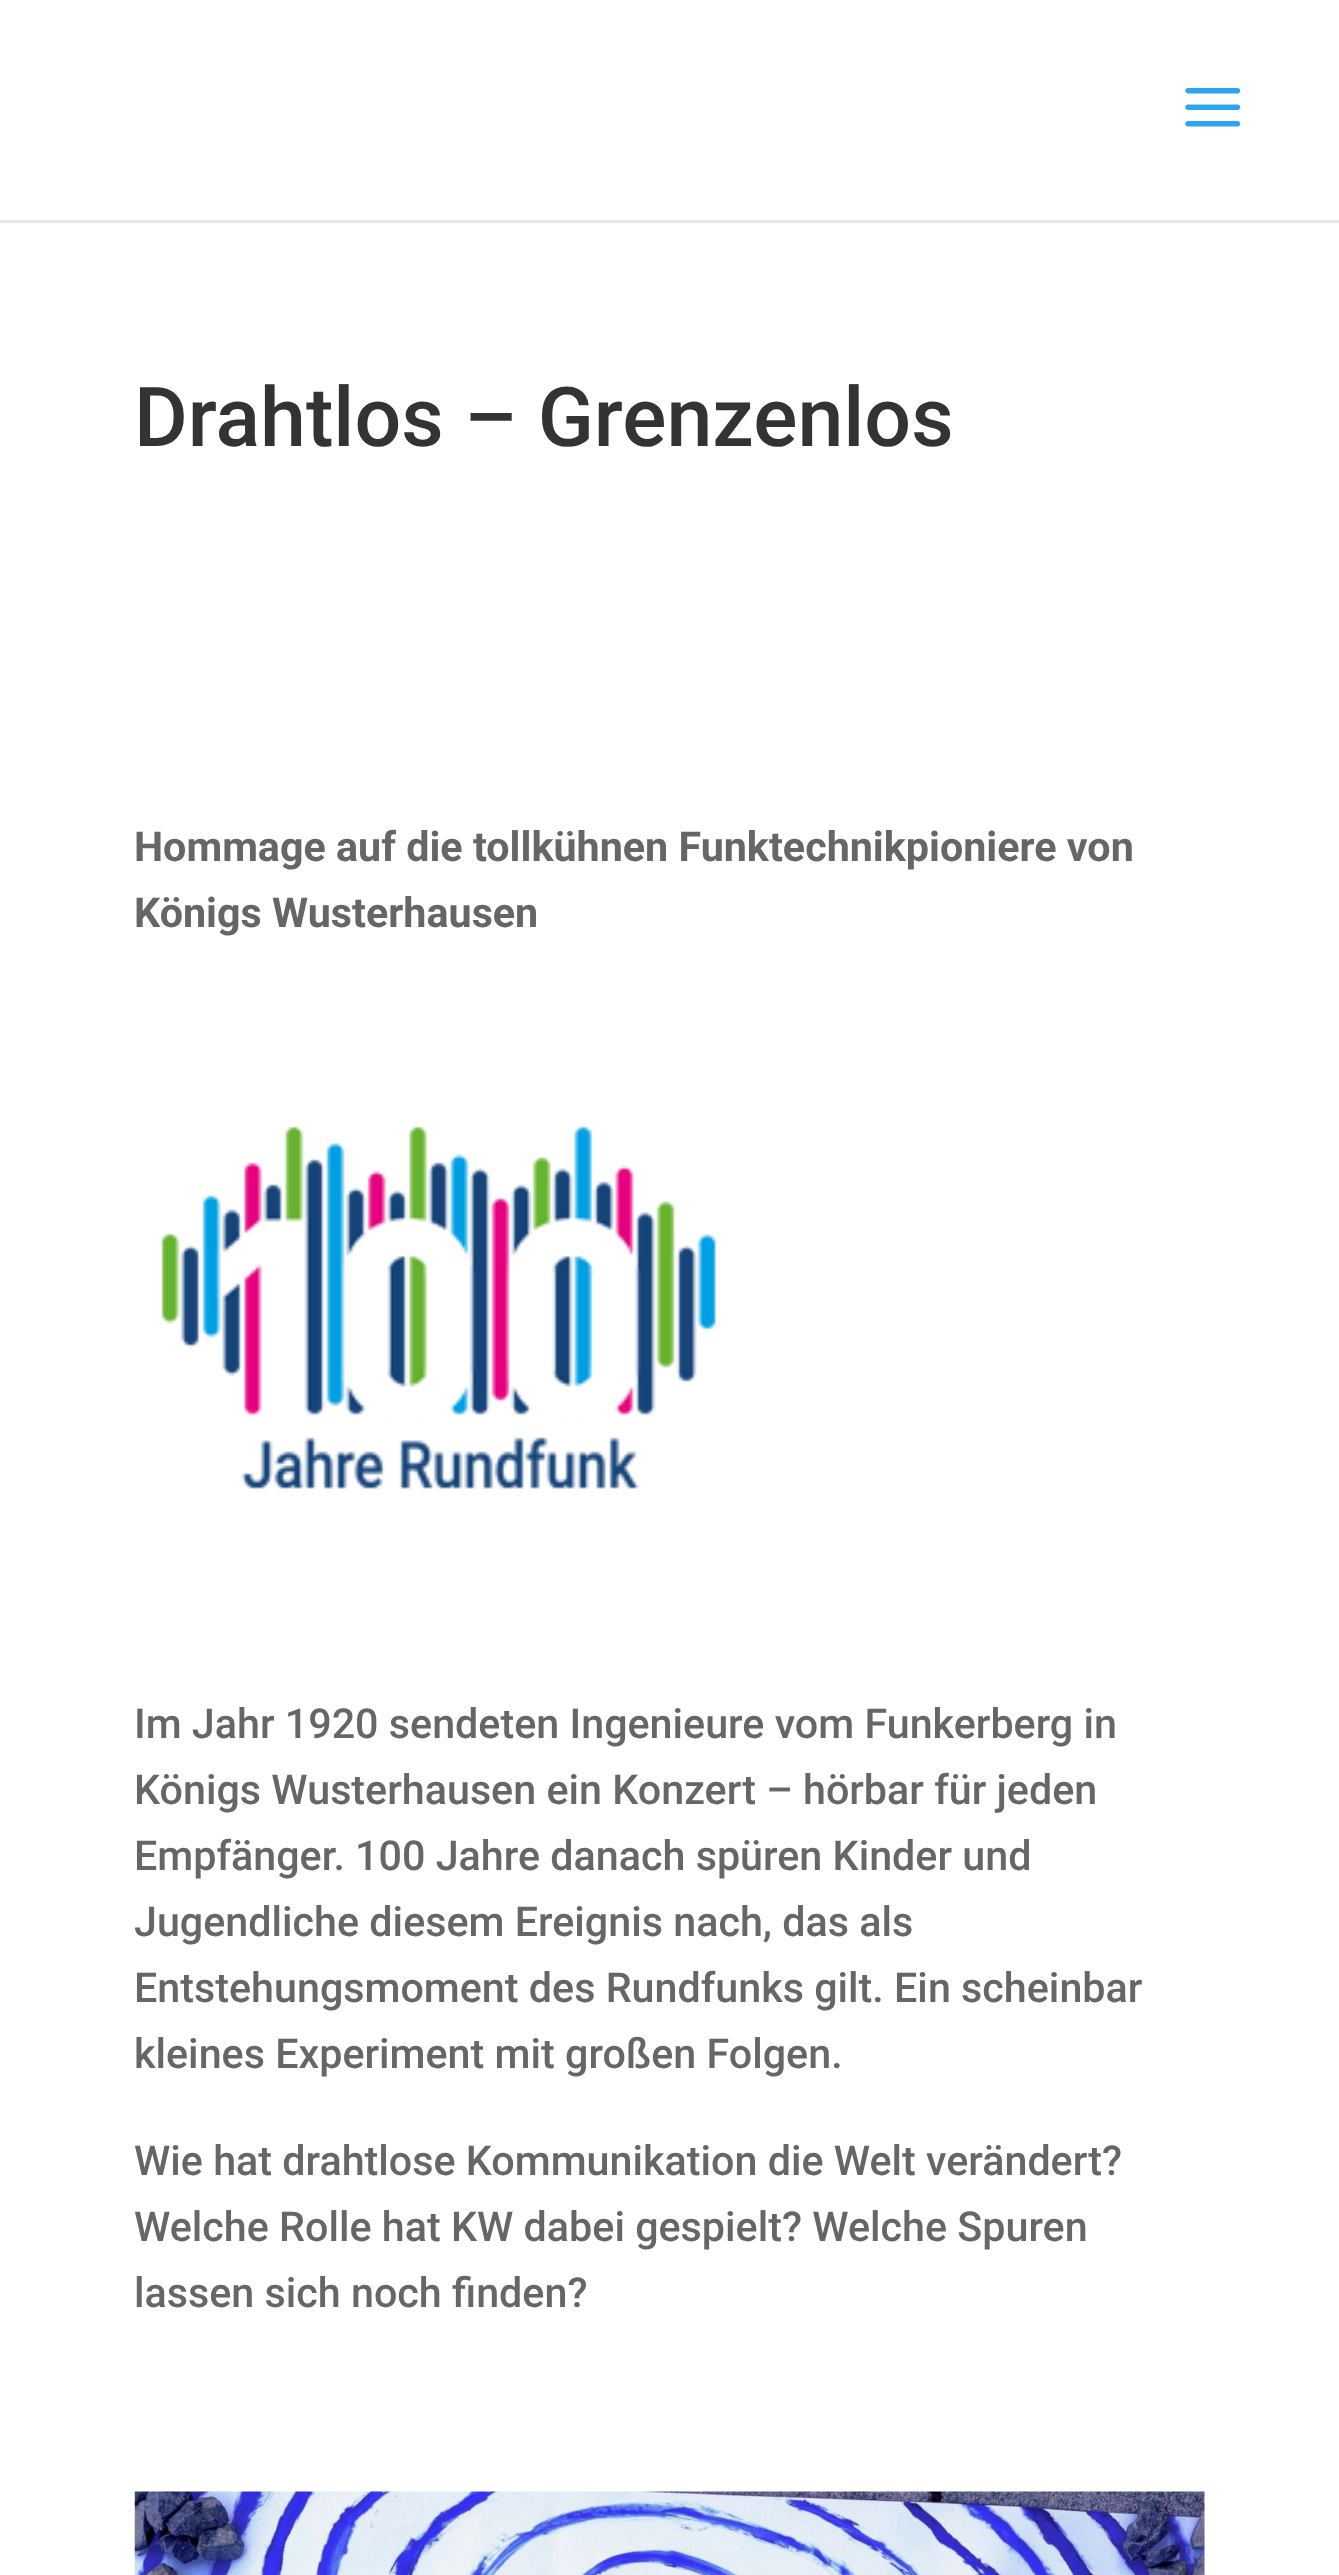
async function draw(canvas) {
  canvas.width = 1339;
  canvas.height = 2575;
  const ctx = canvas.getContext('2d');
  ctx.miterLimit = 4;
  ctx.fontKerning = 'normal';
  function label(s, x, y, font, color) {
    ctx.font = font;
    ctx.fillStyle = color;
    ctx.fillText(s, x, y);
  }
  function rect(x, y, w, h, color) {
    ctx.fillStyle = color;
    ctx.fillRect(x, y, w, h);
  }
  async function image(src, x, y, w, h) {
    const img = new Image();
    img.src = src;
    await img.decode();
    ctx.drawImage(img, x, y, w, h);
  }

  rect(0, 0, 1339, 2575, '#fff');
  rect(0, 220, 1339, 3, '#e6e6e6');
  await image('assets/img1.png', 1185, 88, 56, 39);
  label('Drahtlos – Grenzenlos', 134, 446, '500 82.5px Roboto', '#333');
  label('Hommage auf die tollkühnen Funktechnikpioniere von', 134, 861, 'bold 41.25px Roboto', '#666');
  label('Königs Wusterhausen', 134, 927, 'bold 41.25px Roboto', '#666');
  await image('assets/img2.png', 161, 1126, 555, 363);
  label('Im Jahr 1920 sendeten Ingenieure vom Funkerberg in', 134, 1738, '500 41.25px Roboto', '#666');
  label('Königs Wusterhausen ein Konzert – hörbar für jeden', 134, 1804, '500 41.25px Roboto', '#666');
  label('Empfänger. 100 Jahre danach spüren Kinder und', 134, 1870, '500 41.25px Roboto', '#666');
  label('Jugendliche diesem Ereignis nach, das als', 134, 1936, '500 41.25px Roboto', '#666');
  label('Entstehungsmoment des Rundfunks gilt. Ein scheinbar', 134, 2002, '500 41.25px Roboto', '#666');
  label('kleines Experiment mit großen Folgen.', 134, 2068, '500 41.25px Roboto', '#666');
  label('Wie hat drahtlose Kommunikation die Welt verändert?', 134, 2175, '500 41.25px Roboto', '#666');
  label('Welche Rolle hat KW dabei gespielt? Welche Spuren', 134, 2241, '500 41.25px Roboto', '#666');
  label('lassen sich noch finden?', 134, 2307, '500 41.25px Roboto', '#666');
  await image('assets/img3.png', 134, 2491, 1071, 84);
}

draw(document.querySelector('canvas'));
